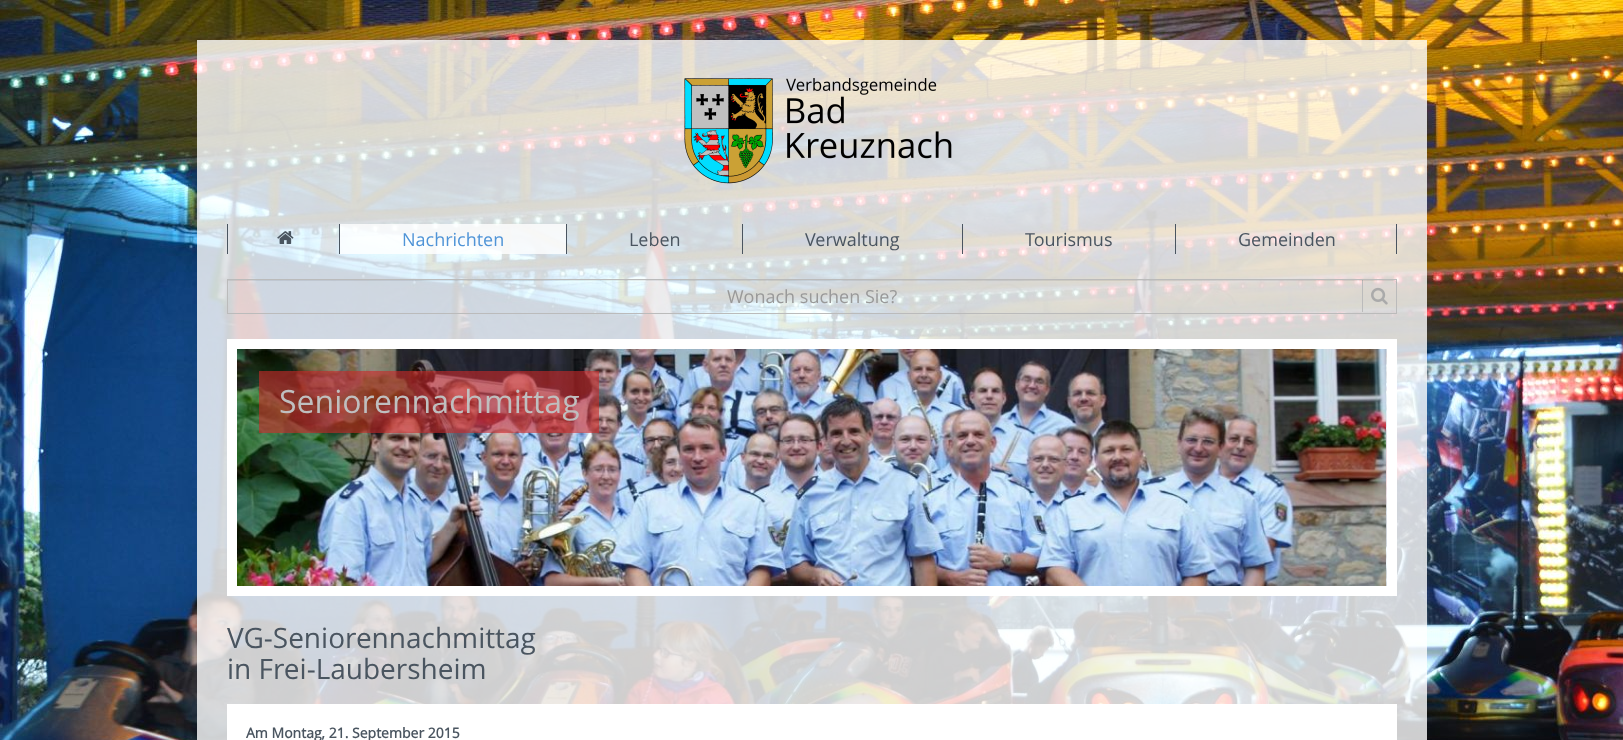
async function draw(canvas) {
  canvas.width = 1623;
  canvas.height = 740;
  const ctx = canvas.getContext('2d');
  ctx.miterLimit = 4;
  ctx.fontKerning = 'normal';
  function label(s, x, y, font, color) {
    ctx.font = font;
    ctx.fillStyle = color;
    ctx.fillText(s, x, y);
  }
  function rect(x, y, w, h, color) {
    ctx.fillStyle = color;
    ctx.fillRect(x, y, w, h);
  }
  async function image(src, x, y, w, h) {
    const img = new Image();
    img.src = src;
    await img.decode();
    ctx.drawImage(img, x, y, w, h);
  }
  let path;

  rect(0, 0, 1623, 740, '#fff');
  await image('assets/img1.png', 0, 0, 1623, 740);
  rect(197, 40, 1230, 556, '#ffffffcc');
  await image('assets/img2.png', 684, 78, 268, 106);
  rect(1396, 224, 1, 30, '#4a5560');
  rect(227, 224, 1, 30, '#4a5560');
  rect(339, 224, 1, 30, '#4a5560');
  await image('assets/img3.png', 277, 231, 17, 13);
  rect(340, 224, 226, 30, '#ffffffcc');
  rect(566, 224, 1, 30, '#4a5560');
  label('Nachrichten', 402, 246, '18px Open Sans', '#4f94d7');
  rect(742, 224, 1, 30, '#4a5560');
  label('Leben', 629, 246, '18px Open Sans', '#4a5560');
  rect(962, 224, 1, 30, '#4a5560');
  label('Verwaltung', 805, 246, '18px Open Sans', '#4a5560');
  rect(1175, 224, 1, 30, '#4a5560');
  label('Tourismus', 1025, 246, '18px Open Sans', '#4a5560');
  label('Gemeinden', 1238, 246, '18px Open Sans', '#4a5560');
  ctx.strokeStyle = '#bbb';
  ctx.strokeRect(227.5, 279.5, 1169, 34);
  rect(1362, 280, 1, 32, '#bbb');
  ctx.fillStyle = '#00000012';
  path = new Path2D('M228 281H1393C1395 281 1397 283 1397 285C1397 282 1396 280 1393 280H228Z');
  ctx.fill(path);
  label('Wonach suchen Sie?', 727, 303, '18px "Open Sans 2"', '#999');
  await image('assets/img4.png', 1371, 287, 17, 18);
  ctx.strokeStyle = '#fff';
  ctx.lineWidth = 10;
  ctx.strokeRect(232, 344, 1160, 247);
  await image('assets/img5.png', 237, 349, 1149, 237);
  rect(259, 371, 340, 62, '#cd282899');
  label('Seniorennachmittag', 279, 413, '32px Open Sans', '#bfbfbf');
  rect(197, 596, 1230, 144, '#ffffffcc');
  label('VG-Seniorennachmittag', 227, 648, '28px Open Sans', '#4a5560');
  label('in Frei-Laubersheim', 227, 679, '28px Open Sans', '#4a5560');
  rect(227, 704, 1170, 36, '#fff');
  label('Am Montag, 21. September 2015', 246, 738, 'bold 14px Open Sans', '#4a5560');
}

draw(document.querySelector('canvas'));
